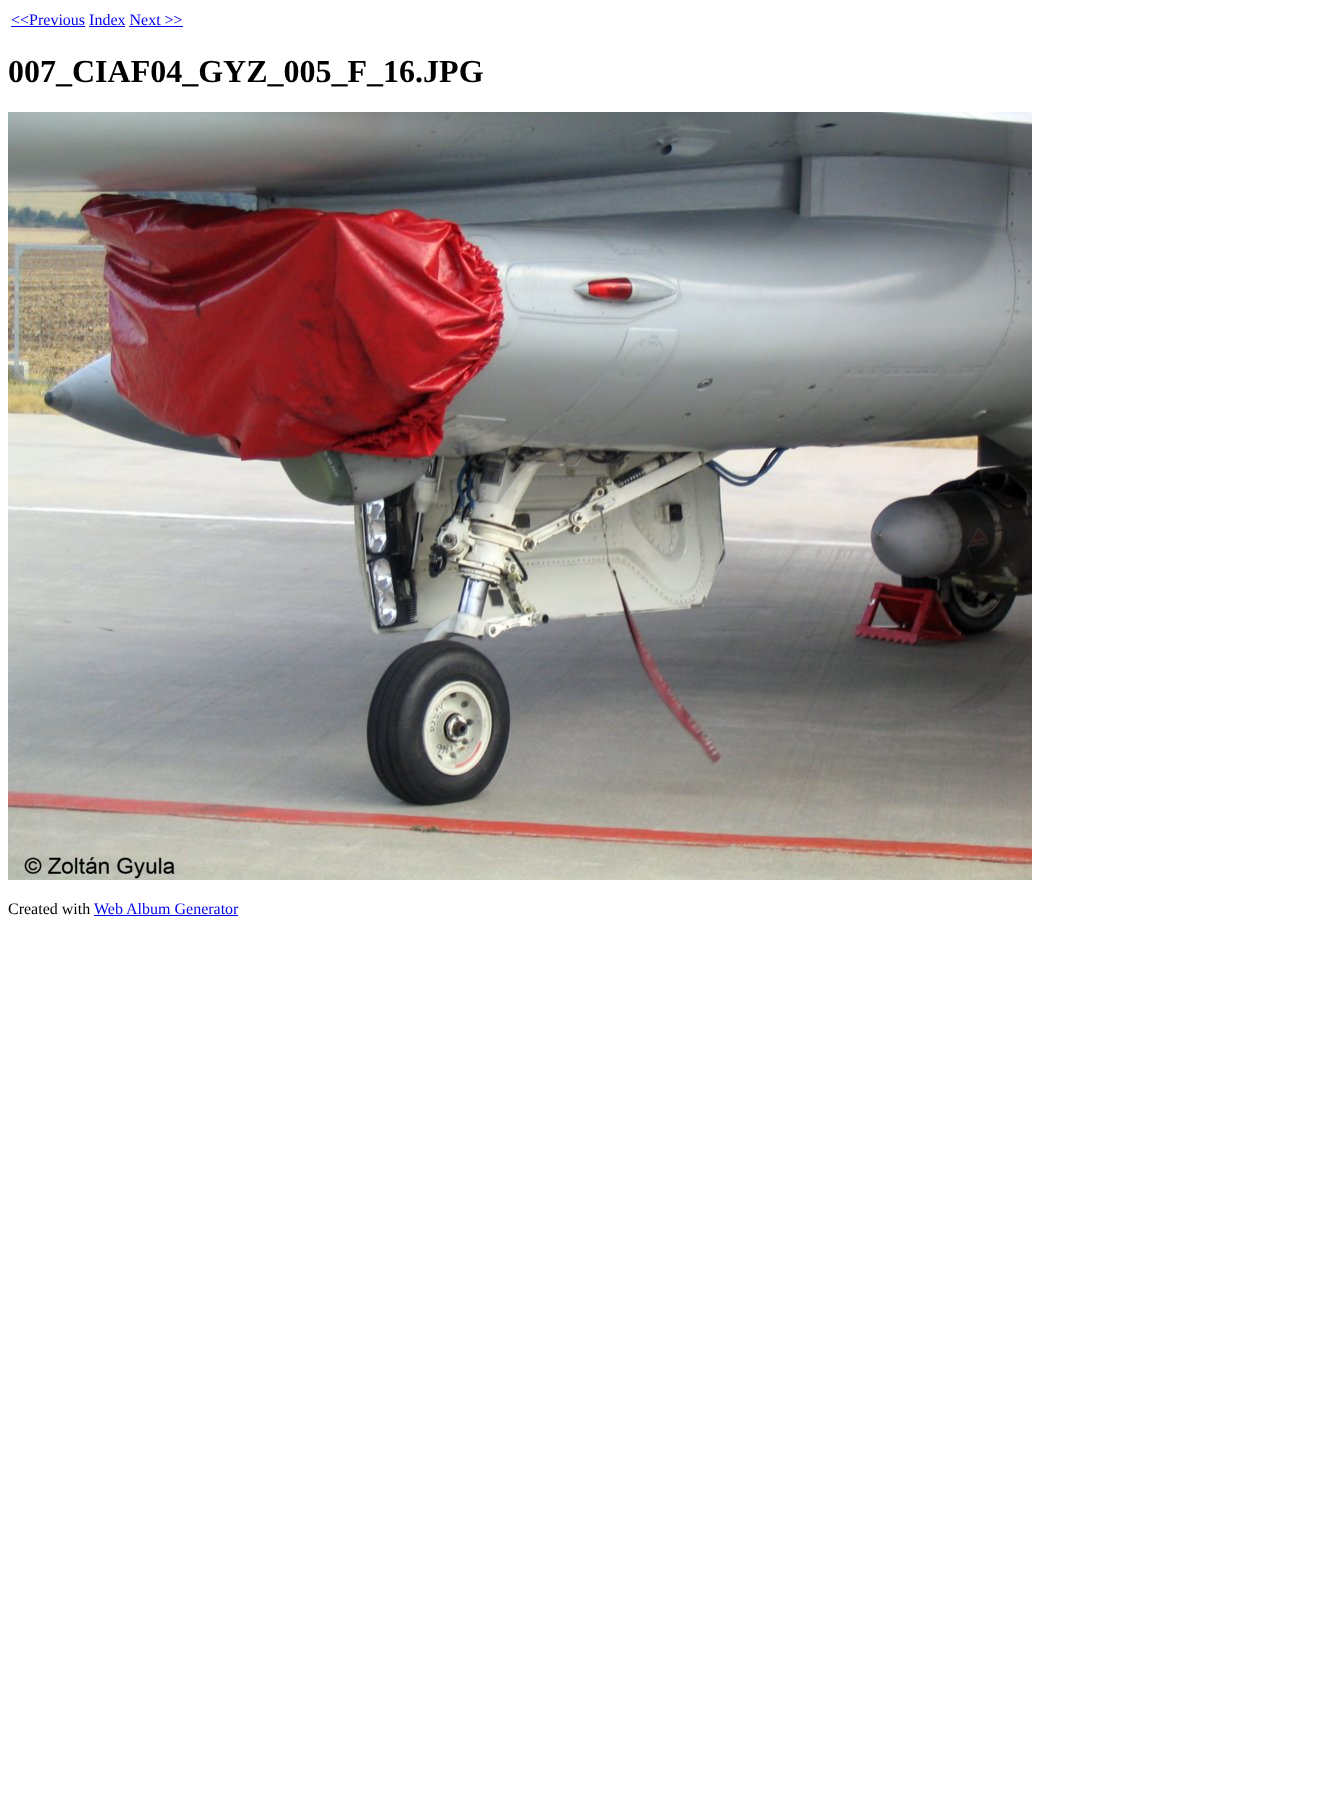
async function draw(canvas) {
  canvas.width = 1321;
  canvas.height = 1805;
  const ctx = canvas.getContext('2d');
  ctx.miterLimit = 4;
  ctx.fontKerning = 'normal';
  function label(s, x, y, font, color) {
    ctx.font = font;
    ctx.fillStyle = color;
    ctx.fillText(s, x, y);
  }
  function rect(x, y, w, h, color) {
    ctx.fillStyle = color;
    ctx.fillRect(x, y, w, h);
  }
  async function image(src, x, y, w, h) {
    const img = new Image();
    img.src = src;
    await img.decode();
    ctx.drawImage(img, x, y, w, h);
  }

  rect(0, 0, 1321, 1805, '#fff');
  label('<<Previous Index Next >>', 11, 25, '16px Liberation Serif', '#00e');
  rect(11, 26, 74, 1, '#00e');
  rect(89, 26, 36, 1, '#00e');
  rect(129, 26, 54, 1, '#00e');
  label('007_CIAF04_GYZ_005_F_16.JPG', 8, 82, 'bold 32px Liberation Serif', '#000');
  await image('assets/img1.png', 8, 112, 1024, 768);
  label('Created with', 8, 914, '16px Liberation Serif', '#000');
  label('Web Album Generator', 94, 914, '16px Liberation Serif', '#00e');
  rect(94, 915, 144, 1, '#00e');
}

draw(document.querySelector('canvas'));
